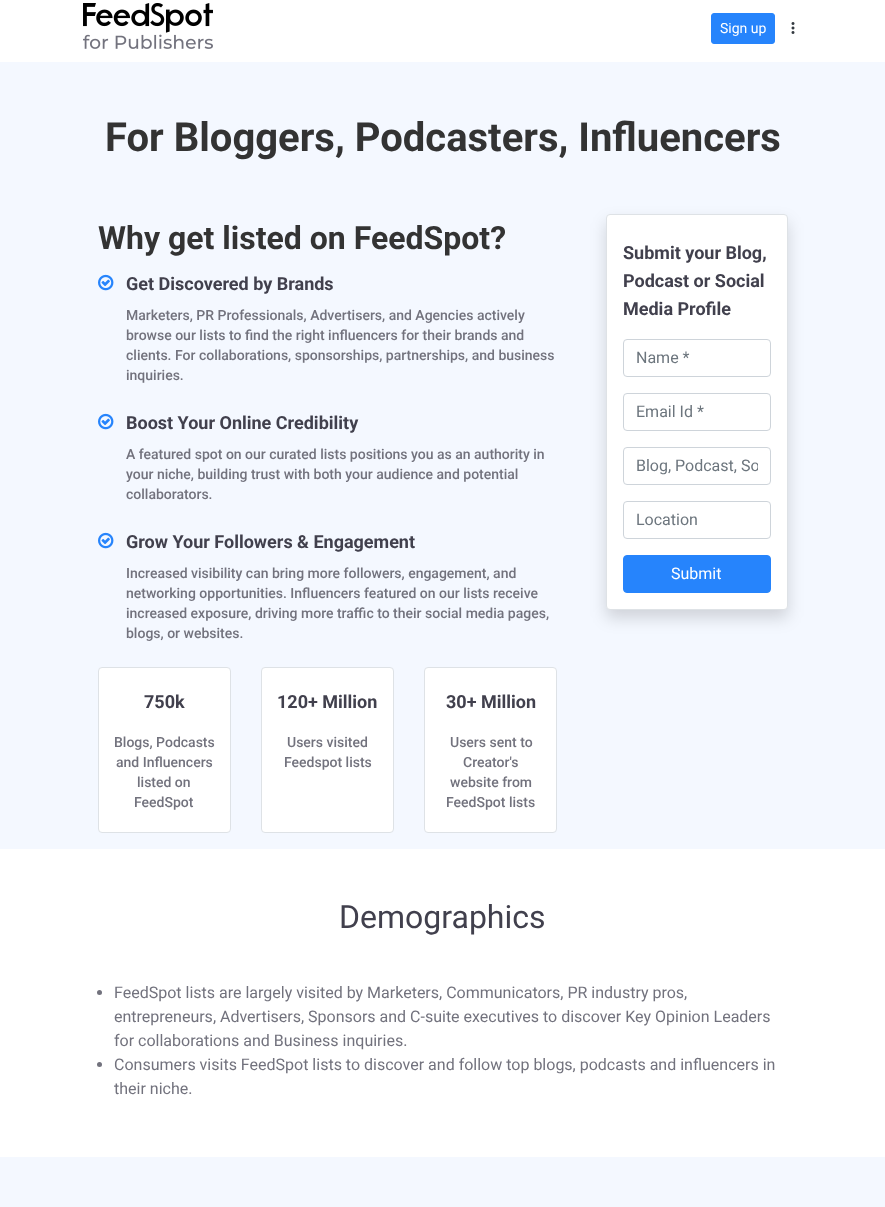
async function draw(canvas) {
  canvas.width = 885;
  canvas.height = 1207;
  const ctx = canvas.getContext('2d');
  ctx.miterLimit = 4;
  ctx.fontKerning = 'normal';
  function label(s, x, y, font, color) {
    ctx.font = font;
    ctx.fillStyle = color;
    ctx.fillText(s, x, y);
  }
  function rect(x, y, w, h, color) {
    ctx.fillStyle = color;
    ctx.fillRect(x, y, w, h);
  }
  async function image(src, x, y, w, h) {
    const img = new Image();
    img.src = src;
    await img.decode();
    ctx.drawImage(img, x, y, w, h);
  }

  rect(0, 0, 885, 1207, '#fff');
  await image('assets/img1.png', 83, 3, 130, 46);
  ctx.fillStyle = '#2684fc';
  ctx.beginPath();
  ctx.roundRect(711.5, 13.5, 63, 30, 2.5);
  ctx.fill();
  ctx.strokeStyle = '#2684fc';
  ctx.stroke();
  label('Sign up', 720, 33, '14px Roboto', '#fff');
  await image('assets/img2.png', 791, 22, 4, 12);
  rect(0, 62, 885, 787, '#f4f8ff');
  label('For Bloggers, Podcasters, Influencers', 105, 151, 'bold 40px Roboto', '#333');
  label('Why get listed on FeedSpot?', 98, 249, 'bold 32px Roboto', '#333');
  await image('assets/img3.png', 98, 274, 16, 17);
  label('Get Discovered by Brands', 126, 290, 'bold 18px Roboto', '#41404d');
  label('Marketers, PR Professionals, Advertisers, and Agencies actively', 126, 320, '500 14px Roboto', '#72727d');
  label('browse our lists to find the right influencers for their brands and', 126, 340, '500 14px Roboto', '#72727d');
  label('clients. For collaborations, sponsorships, partnerships, and business', 126, 360, '500 14px Roboto', '#72727d');
  label('inquiries.', 126, 380, '500 14px Roboto', '#72727d');
  await image('assets/img3.png', 98, 413, 16, 17);
  label('Boost Your Online Credibility', 126, 429, 'bold 18px Roboto', '#41404d');
  label('A featured spot on our curated lists positions you as an authority in', 126, 459, '500 14px Roboto', '#72727d');
  label('your niche, building trust with both your audience and potential', 126, 479, '500 14px Roboto', '#72727d');
  label('collaborators.', 126, 499, '500 14px Roboto', '#72727d');
  await image('assets/img3.png', 98, 532, 16, 17);
  label('Grow Your Followers & Engagement', 126, 548, 'bold 18px Roboto', '#41404d');
  label('Increased visibility can bring more followers, engagement, and', 126, 578, '500 14px Roboto', '#72727d');
  label('networking opportunities. Influencers featured on our lists receive', 126, 598, '500 14px Roboto', '#72727d');
  label('increased exposure, driving more traffic to their social media pages,', 126, 618, '500 14px Roboto', '#72727d');
  label('blogs, or websites.', 126, 638, '500 14px Roboto', '#72727d');
  ctx.fillStyle = '#fff';
  ctx.beginPath();
  ctx.roundRect(98.5, 667.5, 132, 165, 3.5);
  ctx.fill();
  ctx.strokeStyle = '#dee2e6';
  ctx.stroke();
  label('750k', 144, 708, 'bold 18px Roboto', '#41404d');
  label('Blogs, Podcasts', 114, 747, '500 14px Roboto', '#72727d');
  label('and Influencers', 116, 767, '500 14px Roboto', '#72727d');
  label('listed on', 137, 787, '500 14px Roboto', '#72727d');
  label('FeedSpot', 134, 807, '500 14px Roboto', '#72727d');
  ctx.fillStyle = '#fff';
  ctx.beginPath();
  ctx.roundRect(261.5, 667.5, 132, 165, 3.5);
  ctx.fill();
  ctx.stroke();
  label('120+ Million', 277, 708, 'bold 18px Roboto', '#41404d');
  label('Users visited', 287, 747, '500 14px Roboto', '#72727d');
  label('Feedspot lists', 284, 767, '500 14px Roboto', '#72727d');
  ctx.fillStyle = '#fff';
  ctx.beginPath();
  ctx.roundRect(424.5, 667.5, 132, 165, 3.5);
  ctx.fill();
  ctx.stroke();
  label('30+ Million', 446, 708, 'bold 18px Roboto', '#41404d');
  label('Users sent to', 450, 747, '500 14px Roboto', '#72727d');
  label('Creator\'s', 463, 767, '500 14px Roboto', '#72727d');
  label('website from', 450, 787, '500 14px Roboto', '#72727d');
  label('FeedSpot lists', 446, 807, '500 14px Roboto', '#72727d');
  ctx.fillStyle = '#00000026';
  ctx.filter = 'blur(8px)';
  ctx.beginPath();
  ctx.roundRect(606, 222, 182, 396, 4);
  ctx.fill();
  ctx.filter = 'none';
  ctx.fillStyle = '#fff';
  ctx.beginPath();
  ctx.roundRect(606.5, 214.5, 181, 395, 3.5);
  ctx.fill();
  ctx.stroke();
  label('Submit your Blog,', 623, 259, 'bold 18px Roboto', '#41404d');
  label('Podcast or Social', 623, 287, 'bold 18px Roboto', '#41404d');
  label('Media Profile', 623, 315, 'bold 18px Roboto', '#41404d');
  ctx.beginPath();
  ctx.roundRect(623.5, 339.5, 147, 37, 3.5);
  ctx.strokeStyle = '#ced4da';
  ctx.stroke();
  label('Name *', 636, 363, '16px Roboto', '#6c757d');
  ctx.beginPath();
  ctx.roundRect(623.5, 393.5, 147, 37, 3.5);
  ctx.stroke();
  label('Email Id *', 636, 417, '16px Roboto', '#6c757d');
  ctx.beginPath();
  ctx.roundRect(623.5, 447.5, 147, 37, 3.5);
  ctx.stroke();
  ctx.save();
  ctx.beginPath();
  ctx.rect(636, 456, 122, 19);
  ctx.clip();
  label('Blog, Podcast, So', 636, 471, '16px Roboto', '#6c757d');
  ctx.restore();
  ctx.beginPath();
  ctx.roundRect(623.5, 501.5, 147, 37, 3.5);
  ctx.stroke();
  label('Location', 636, 525, '16px Roboto', '#6c757d');
  ctx.fillStyle = '#2684fc';
  ctx.beginPath();
  ctx.roundRect(623.5, 555.5, 147, 37, 3.5);
  ctx.fill();
  ctx.strokeStyle = '#2684fc';
  ctx.stroke();
  label('Submit', 671, 579, '16px Roboto', '#fff');
  label('Demographics', 339, 928, '32px Roboto', '#41404d');
  ctx.fillStyle = '#72727d';
  ctx.beginPath();
  ctx.arc(99.5, 992.5, 2.5, 0, 2 * Math.PI);
  ctx.fill();
  label('FeedSpot lists are largely visited by Marketers, Communicators, PR industry pros,', 114, 998, '16px Roboto', '#72727d');
  label('entrepreneurs, Advertisers, Sponsors and C-suite executives to discover Key Opinion Leaders', 114, 1022, '16px Roboto', '#72727d');
  label('for collaborations and Business inquiries.', 114, 1046, '16px Roboto', '#72727d');
  ctx.beginPath();
  ctx.arc(99.5, 1064.5, 2.5, 0, 2 * Math.PI);
  ctx.fill();
  label('Consumers visits FeedSpot lists to discover and follow top blogs, podcasts and influencers in', 114, 1070, '16px Roboto', '#72727d');
  label('their niche.', 114, 1094, '16px Roboto', '#72727d');
  rect(0, 1157, 885, 50, '#f4f8ff');
}

draw(document.querySelector('canvas'));
